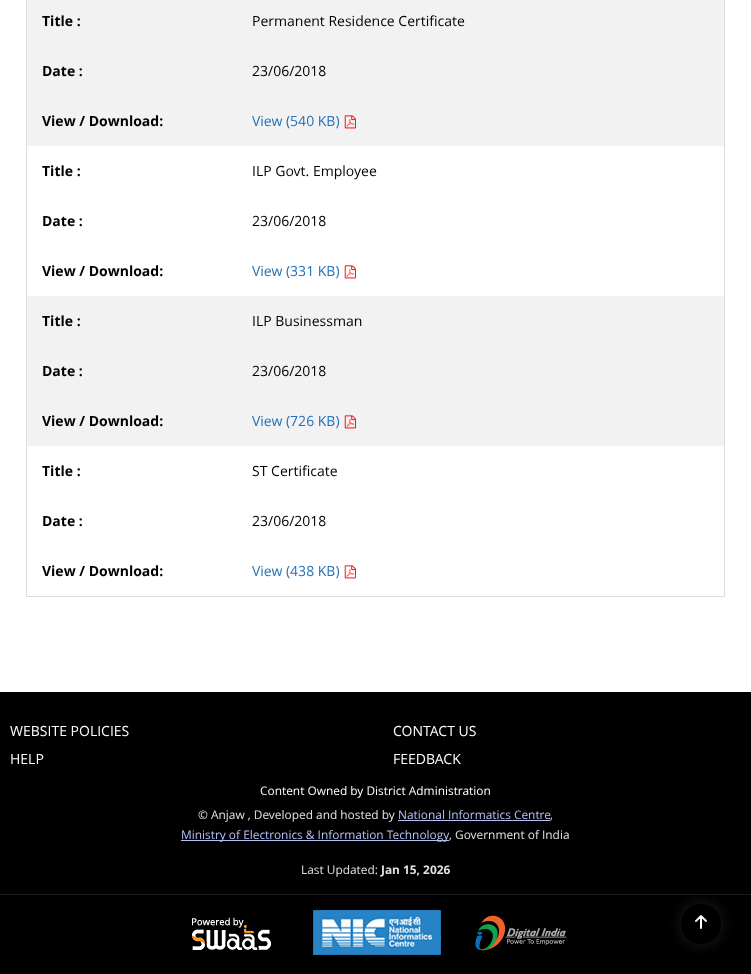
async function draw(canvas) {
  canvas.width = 751;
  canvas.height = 974;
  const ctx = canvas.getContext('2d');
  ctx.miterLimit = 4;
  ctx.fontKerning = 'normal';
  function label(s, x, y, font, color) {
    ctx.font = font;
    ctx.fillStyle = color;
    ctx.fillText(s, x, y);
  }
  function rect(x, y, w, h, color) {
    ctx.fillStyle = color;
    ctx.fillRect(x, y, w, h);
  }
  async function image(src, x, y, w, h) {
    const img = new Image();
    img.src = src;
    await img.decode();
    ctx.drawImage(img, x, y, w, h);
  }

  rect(0, 0, 751, 974, '#fff');
  rect(724, 0, 1, 597, '#ddd');
  rect(26, 596, 699, 1, '#ddd');
  rect(26, 0, 1, 597, '#ddd');
  rect(27, 0, 697, 146, '#f2f2f2');
  label('Title :', 42, 26, 'bold 14px Open Sans', '#000');
  label('Permanent Residence Certificate', 252, 26, '14px Open Sans', '#000');
  label('Date :', 42, 76, 'bold 14px Open Sans', '#000');
  label('23/06/2018', 252, 76, '14px Open Sans', '#000');
  label('View / Download:', 42, 126, 'bold 14px Open Sans', '#000');
  label('View (540 KB)', 252, 126, '14px Open Sans', '#2273b9');
  await image('assets/img1.png', 344, 115, 12, 14);
  label('Title :', 42, 176, 'bold 14px Open Sans', '#000');
  label('ILP Govt. Employee', 252, 176, '14px Open Sans', '#000');
  label('Date :', 42, 226, 'bold 14px Open Sans', '#000');
  label('23/06/2018', 252, 226, '14px Open Sans', '#000');
  label('View / Download:', 42, 276, 'bold 14px Open Sans', '#000');
  label('View (331 KB)', 252, 276, '14px Open Sans', '#2273b9');
  await image('assets/img2.png', 344, 265, 12, 14);
  rect(27, 296, 697, 150, '#f2f2f2');
  label('Title :', 42, 326, 'bold 14px Open Sans', '#000');
  label('ILP Businessman', 252, 326, '14px Open Sans', '#000');
  label('Date :', 42, 376, 'bold 14px Open Sans', '#000');
  label('23/06/2018', 252, 376, '14px Open Sans', '#000');
  label('View / Download:', 42, 426, 'bold 14px Open Sans', '#000');
  label('View (726 KB)', 252, 426, '14px Open Sans', '#2273b9');
  await image('assets/img1.png', 344, 415, 12, 14);
  label('Title :', 42, 476, 'bold 14px Open Sans', '#000');
  label('ST Certificate', 252, 476, '14px Open Sans', '#000');
  label('Date :', 42, 526, 'bold 14px Open Sans', '#000');
  label('23/06/2018', 252, 526, '14px Open Sans', '#000');
  label('View / Download:', 42, 576, 'bold 14px Open Sans', '#000');
  label('View (438 KB)', 252, 576, '14px Open Sans', '#2273b9');
  await image('assets/img2.png', 344, 565, 12, 14);
  rect(0, 692, 751, 282, '#000');
  label('WEBSITE POLICIES', 10, 736, '14px Open Sans', '#fff');
  label('CONTACT US', 393, 736, '14px Open Sans', '#fff');
  label('HELP', 10, 764, '14px Open Sans', '#fff');
  label('FEEDBACK', 393, 764, '14px Open Sans', '#fff');
  label('Content Owned by District Administration', 260, 795, '11.9px Open Sans', '#fff');
  label('© Anjaw , Developed and hosted by', 198, 819, '11.9px Open Sans', '#e1e1e1');
  label('National Informatics Centre', 398, 819, '11.9px Open Sans', '#b4c1f5');
  rect(398, 820, 152, 1, '#b4c1f5');
  label(',', 550, 819, '11.9px Open Sans', '#e1e1e1');
  rect(181, 840, 268, 1, '#b4c1f5');
  label('Ministry of Electronics & Information Technology', 181, 839, '11.9px Open Sans', '#b4c1f5');
  label(', Government of India', 449, 839, '11.9px Open Sans', '#e1e1e1');
  label('Last Updated:', 301, 874, '11.9px Open Sans', '#e1e1e1');
  label('Jan 15, 2026', 381, 874, 'bold 11.9px Open Sans', '#e1e1e1');
  rect(0, 894, 751, 1, '#1a1a1a');
  await image('assets/img3.png', 192, 917, 79, 33);
  await image('assets/img4.png', 313, 910, 128, 45);
  await image('assets/img5.png', 475, 915, 92, 36);
  ctx.fillStyle = '#3c3c3c';
  ctx.filter = 'blur(9.5px)';
  ctx.beginPath();
  ctx.roundRect(686, 909, 30, 30, 15);
  ctx.fill();
  ctx.filter = 'none';
  ctx.fillStyle = '#000';
  ctx.beginPath();
  ctx.arc(701, 924, 20, 0, 2 * Math.PI);
  ctx.fill();
  await image('assets/img6.png', 695, 915, 12, 14);
}

draw(document.querySelector('canvas'));
